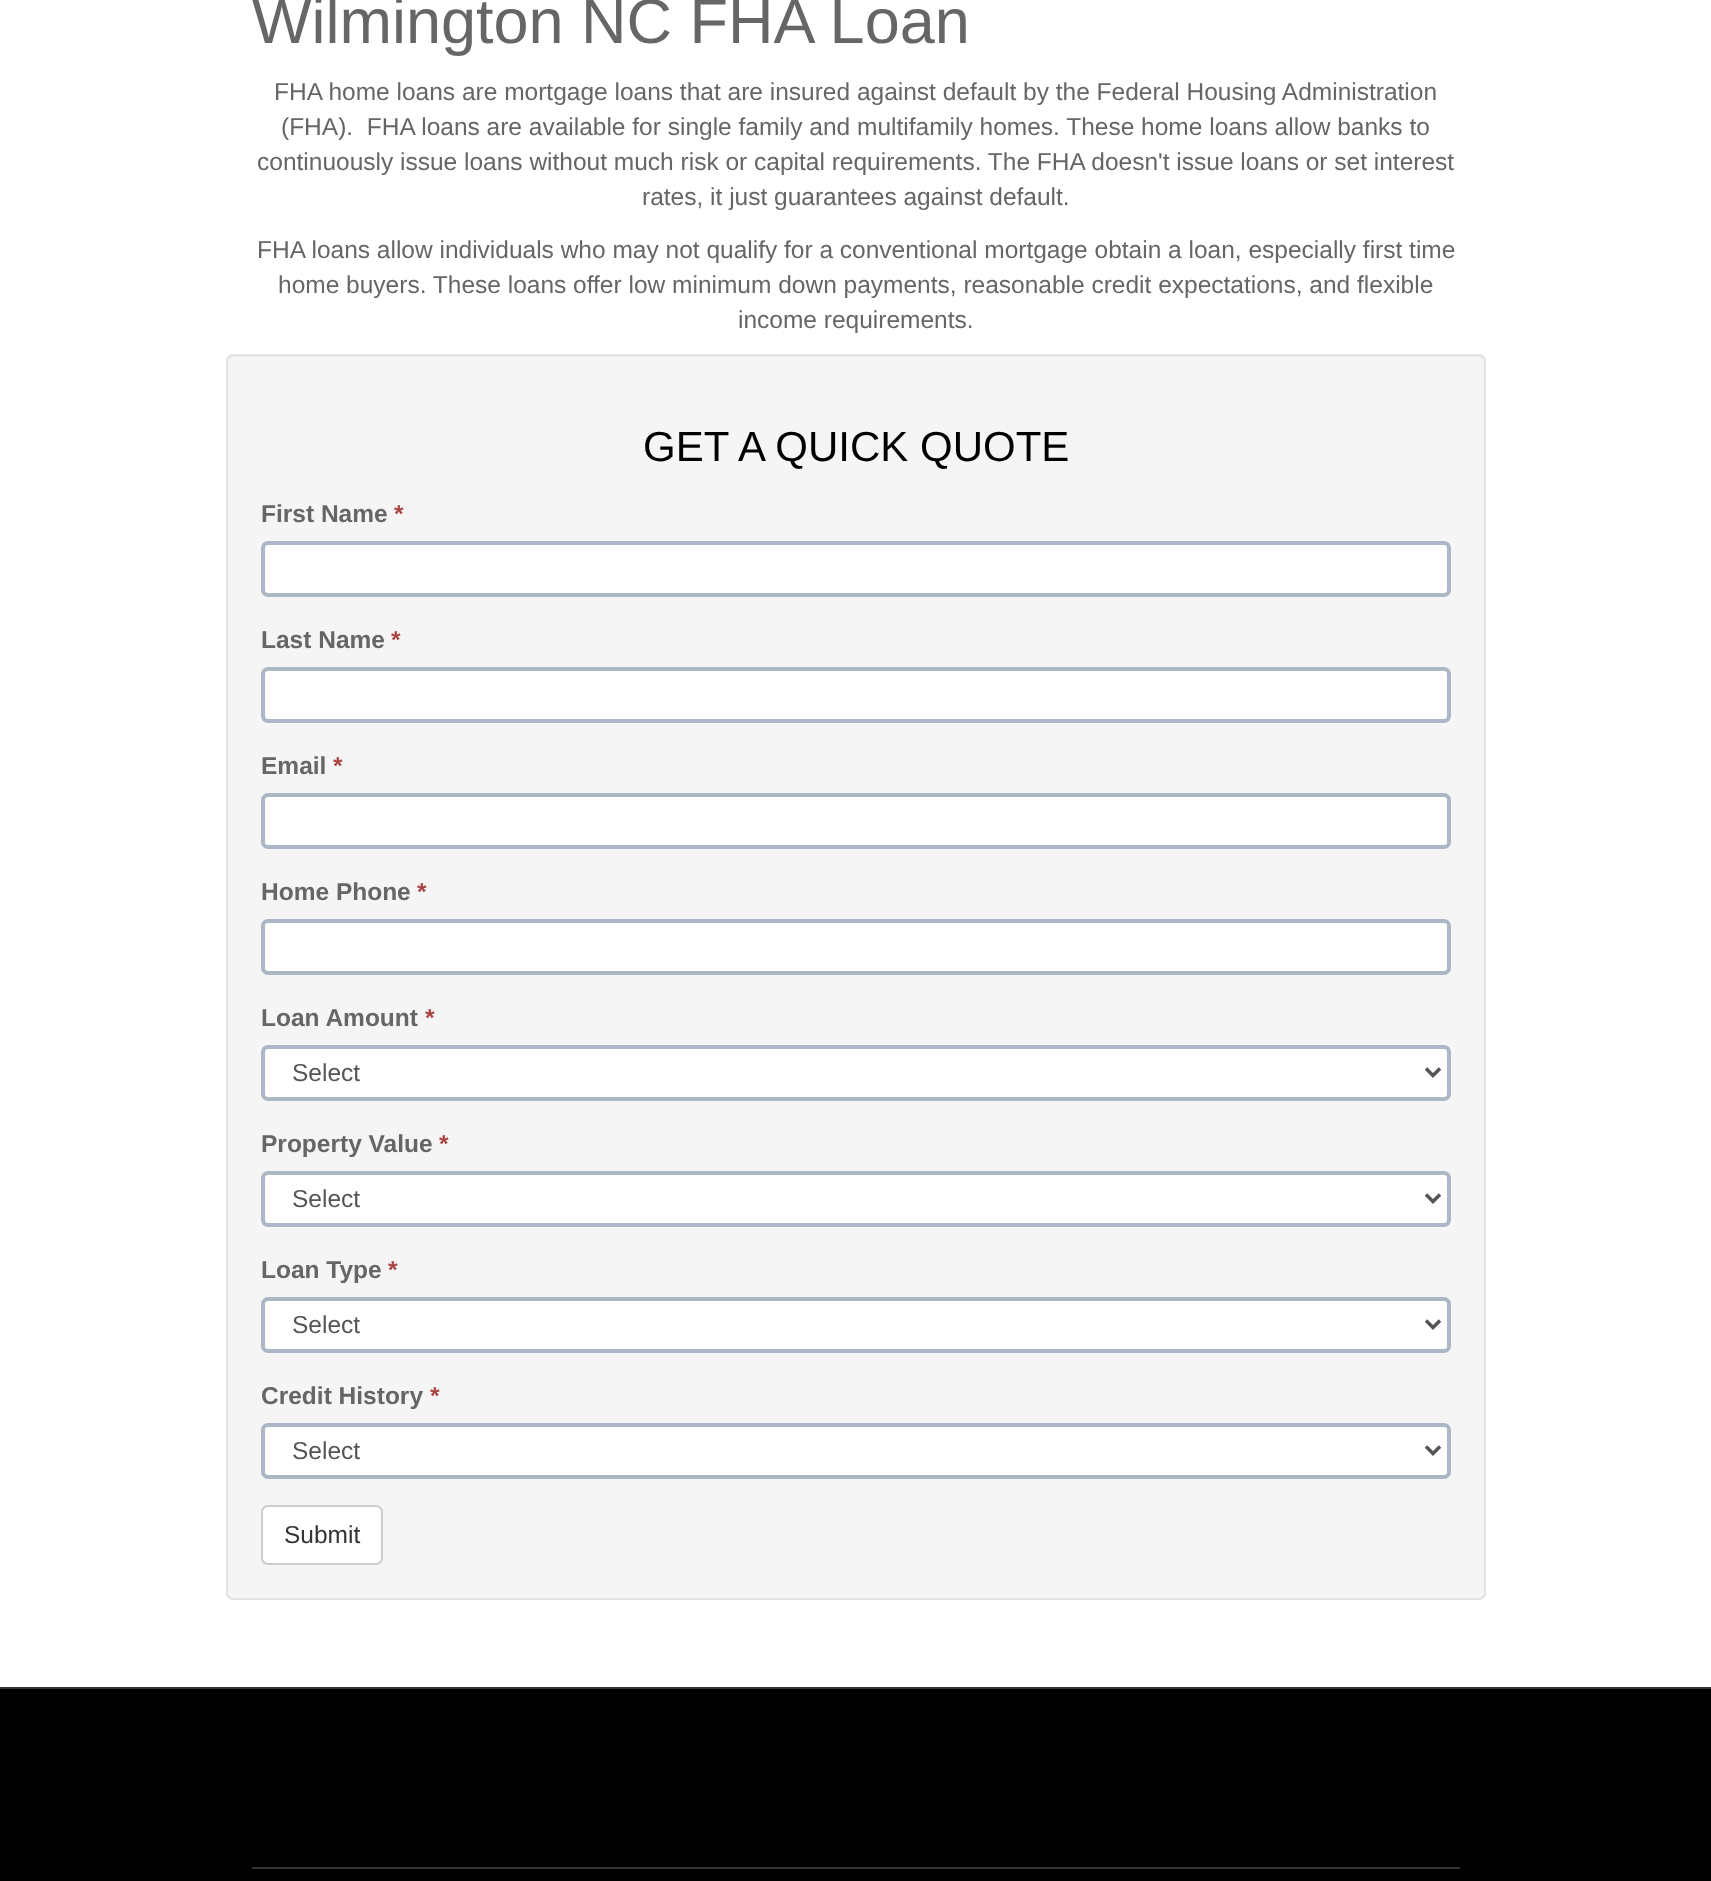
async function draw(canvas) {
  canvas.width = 1711;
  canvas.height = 1881;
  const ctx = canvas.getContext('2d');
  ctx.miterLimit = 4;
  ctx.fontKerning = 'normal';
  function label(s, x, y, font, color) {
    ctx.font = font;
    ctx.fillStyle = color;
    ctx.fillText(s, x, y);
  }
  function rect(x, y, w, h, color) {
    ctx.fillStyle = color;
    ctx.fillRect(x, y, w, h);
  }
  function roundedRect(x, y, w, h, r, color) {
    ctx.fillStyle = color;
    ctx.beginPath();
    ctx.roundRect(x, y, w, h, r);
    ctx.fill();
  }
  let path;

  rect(0, 0, 1711, 1881, '#fff');
  label('Wilmington NC FHA Loan', 252, 43, '63px Liberation Sans', '#666');
  label('FHA home loans are mortgage loans that are insured against default by the Federal Housing Administration', 274, 100, '24.5px Liberation Sans', '#666');
  label('(FHA).  FHA loans are available for single family and multifamily homes. These home loans allow banks to', 281, 135, '24.5px Liberation Sans', '#666');
  label('continuously issue loans without much risk or capital requirements. The FHA doesn\'t issue loans or set interest', 257, 170, '24.5px Liberation Sans', '#666');
  label('rates, it just guarantees against default.', 642, 205, '24.5px Liberation Sans', '#666');
  label('FHA loans allow individuals who may not qualify for a conventional mortgage obtain a loan, especially first time', 257, 258, '24.5px Liberation Sans', '#666');
  label('home buyers. These loans offer low minimum down payments, reasonable credit expectations, and flexible', 278, 293, '24.5px Liberation Sans', '#666');
  label('income requirements.', 738, 328, '24.5px Liberation Sans', '#666');
  roundedRect(226, 354, 1260, 1246, 7, '#f5f5f5');
  ctx.fillStyle = '#e9e9e9';
  path = new Path2D('M233 357H1479C1482 357 1484 359 1484 362V360C1484 357 1482 355 1479 355H233C230 355 228 357 228 360V362C228 359 230 357 233 357Z');
  ctx.fill(path);
  ctx.beginPath();
  ctx.roundRect(227, 355, 1258, 1244, 6);
  ctx.strokeStyle = '#e3e3e3';
  ctx.lineWidth = 2;
  ctx.stroke();
  label('GET A QUICK QUOTE', 643, 461, '42px Liberation Sans', '#000');
  label('First Name', 261, 522, 'bold 24.5px Liberation Sans', '#666');
  label('*', 394, 522, 'bold 24.5px Liberation Sans', '#a94442');
  ctx.fillStyle = '#fff';
  ctx.beginPath();
  ctx.roundRect(263, 543, 1186, 52, 5);
  ctx.fill();
  ctx.strokeStyle = '#abb7c5';
  ctx.lineWidth = 4;
  ctx.stroke();
  label('Last Name', 261, 648, 'bold 24.5px Liberation Sans', '#666');
  label('*', 391, 648, 'bold 24.5px Liberation Sans', '#a94442');
  ctx.fillStyle = '#fff';
  ctx.beginPath();
  ctx.roundRect(263, 669, 1186, 52, 5);
  ctx.fill();
  ctx.stroke();
  label('Email', 261, 774, 'bold 24.5px Liberation Sans', '#666');
  label('*', 333, 774, 'bold 24.5px Liberation Sans', '#a94442');
  ctx.fillStyle = '#fff';
  ctx.beginPath();
  ctx.roundRect(263, 795, 1186, 52, 5);
  ctx.fill();
  ctx.stroke();
  label('Home Phone', 261, 900, 'bold 24.5px Liberation Sans', '#666');
  label('*', 417, 900, 'bold 24.5px Liberation Sans', '#a94442');
  ctx.fillStyle = '#fff';
  ctx.beginPath();
  ctx.roundRect(263, 921, 1186, 52, 5);
  ctx.fill();
  ctx.stroke();
  label('Loan Amount', 261, 1026, 'bold 24.5px Liberation Sans', '#666');
  label('*', 425, 1026, 'bold 24.5px Liberation Sans', '#a94442');
  ctx.fillStyle = '#fff';
  ctx.beginPath();
  ctx.roundRect(263, 1047, 1186, 52, 5);
  ctx.fill();
  ctx.stroke();
  path = new Path2D('M1426 1068.5L1433 1075.5L1440 1068.5');
  ctx.strokeStyle = '#555';
  ctx.lineWidth = 3.5;
  ctx.stroke(path);
  label('Select', 292, 1081, '24.5px Liberation Sans', '#555');
  label('Property Value', 261, 1152, 'bold 24.5px Liberation Sans', '#666');
  label('*', 439, 1152, 'bold 24.5px Liberation Sans', '#a94442');
  ctx.fillStyle = '#fff';
  ctx.beginPath();
  ctx.roundRect(263, 1173, 1186, 52, 5);
  ctx.fill();
  ctx.strokeStyle = '#abb7c5';
  ctx.lineWidth = 4;
  ctx.stroke();
  path = new Path2D('M1426 1194.5L1433 1201.5L1440 1194.5');
  ctx.strokeStyle = '#555';
  ctx.lineWidth = 3.5;
  ctx.stroke(path);
  label('Select', 292, 1207, '24.5px Liberation Sans', '#555');
  label('Loan Type', 261, 1278, 'bold 24.5px Liberation Sans', '#666');
  label('*', 388, 1278, 'bold 24.5px Liberation Sans', '#a94442');
  ctx.fillStyle = '#fff';
  ctx.beginPath();
  ctx.roundRect(263, 1299, 1186, 52, 5);
  ctx.fill();
  ctx.strokeStyle = '#abb7c5';
  ctx.lineWidth = 4;
  ctx.stroke();
  path = new Path2D('M1426 1320.5L1433 1327.5L1440 1320.5');
  ctx.strokeStyle = '#555';
  ctx.lineWidth = 3.5;
  ctx.stroke(path);
  label('Select', 292, 1333, '24.5px Liberation Sans', '#555');
  label('Credit History', 261, 1404, 'bold 24.5px Liberation Sans', '#666');
  label('*', 430, 1404, 'bold 24.5px Liberation Sans', '#a94442');
  ctx.fillStyle = '#fff';
  ctx.beginPath();
  ctx.roundRect(263, 1425, 1186, 52, 5);
  ctx.fill();
  ctx.strokeStyle = '#abb7c5';
  ctx.lineWidth = 4;
  ctx.stroke();
  path = new Path2D('M1426 1446.5L1433 1453.5L1440 1446.5');
  ctx.strokeStyle = '#555';
  ctx.lineWidth = 3.5;
  ctx.stroke(path);
  label('Select', 292, 1459, '24.5px Liberation Sans', '#555');
  ctx.fillStyle = '#fff';
  ctx.beginPath();
  ctx.roundRect(262, 1506, 120, 58, 6);
  ctx.fill();
  ctx.strokeStyle = '#ccc';
  ctx.lineWidth = 2;
  ctx.stroke();
  label('Submit', 284, 1543, '24.5px Liberation Sans', '#333');
  rect(0, 1689, 1711, 192, '#000');
  rect(0, 1687, 1711, 2, '#333');
  rect(252, 1867, 1208, 2, '#333');
}

draw(document.querySelector('canvas'));
